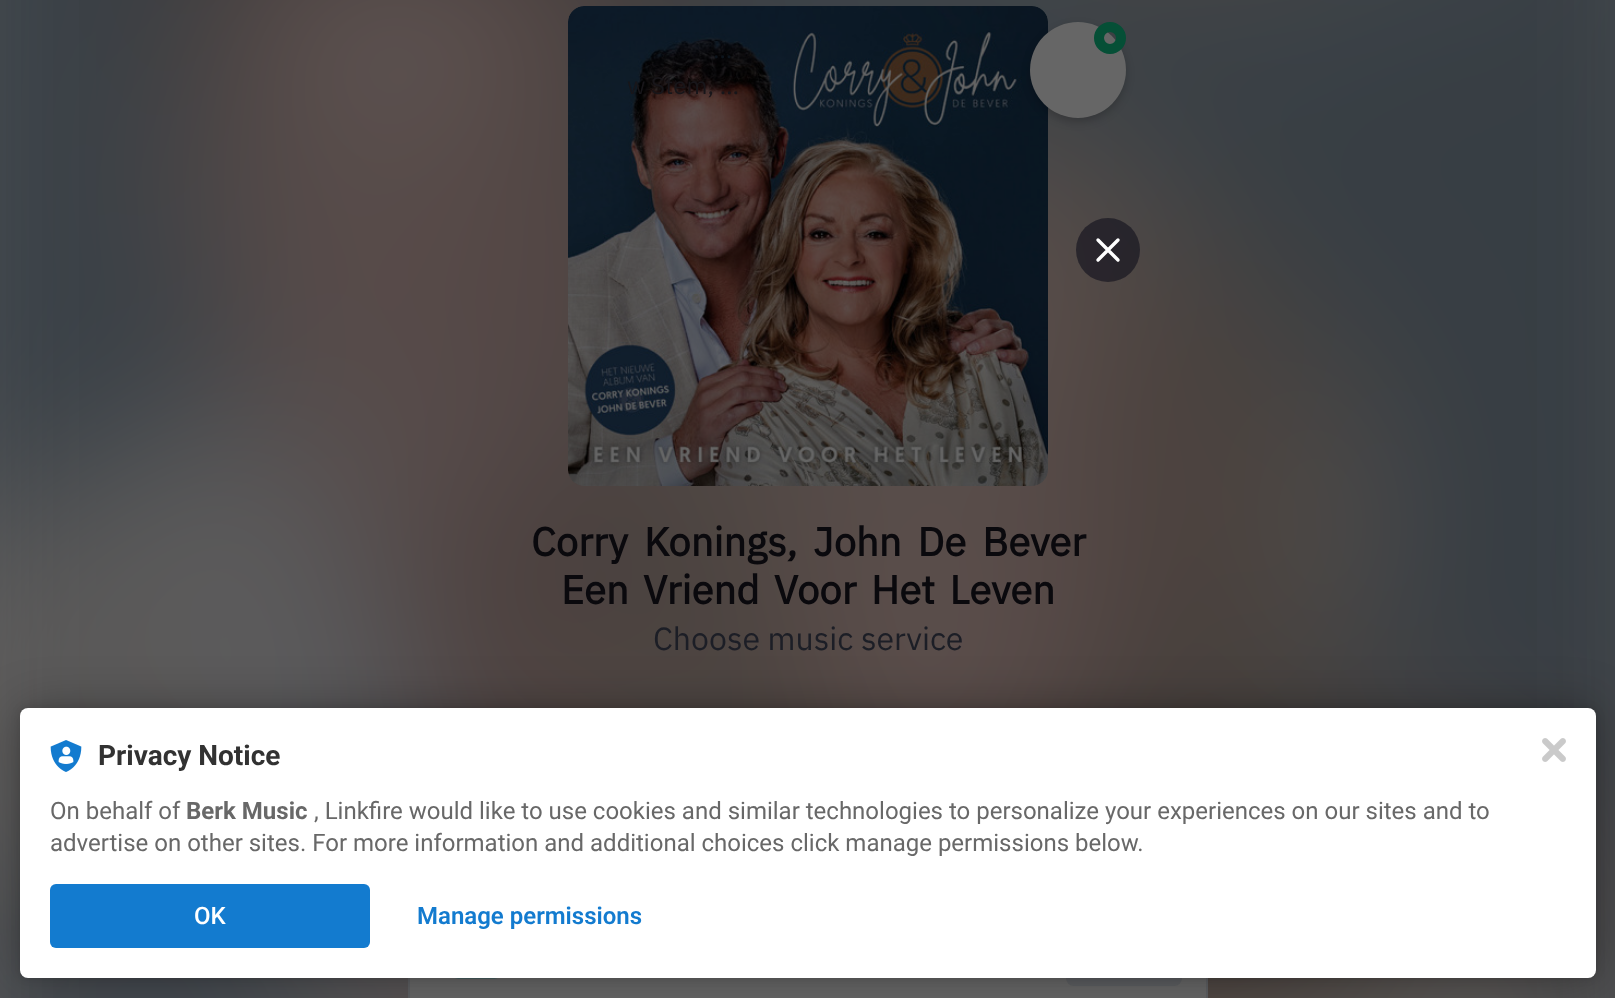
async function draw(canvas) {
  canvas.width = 1615;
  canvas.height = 998;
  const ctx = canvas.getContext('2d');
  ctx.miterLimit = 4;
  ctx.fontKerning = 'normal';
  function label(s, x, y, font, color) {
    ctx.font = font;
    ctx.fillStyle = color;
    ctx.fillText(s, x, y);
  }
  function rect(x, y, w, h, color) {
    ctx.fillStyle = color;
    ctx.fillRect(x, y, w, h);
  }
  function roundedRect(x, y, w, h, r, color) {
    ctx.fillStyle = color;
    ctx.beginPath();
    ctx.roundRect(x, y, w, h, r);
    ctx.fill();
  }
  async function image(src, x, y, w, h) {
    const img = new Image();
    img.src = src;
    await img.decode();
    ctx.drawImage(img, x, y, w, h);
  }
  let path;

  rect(0, 0, 1615, 998, '#666');
  await image('assets/img1.png', 0, 0, 1615, 998);
  await image('assets/img2.png', 568, 6, 480, 480);
  ctx.fillStyle = '#00000033';
  ctx.filter = 'blur(4px)';
  ctx.beginPath();
  ctx.roundRect(1030, 26, 96, 96, 48);
  ctx.fill();
  ctx.filter = 'none';
  ctx.fillStyle = '#666';
  ctx.beginPath();
  ctx.arc(1078, 70, 48, 0, 2 * Math.PI);
  ctx.fill();
  ctx.beginPath();
  ctx.arc(1110, 38, 11, 0, 2 * Math.PI);
  ctx.strokeStyle = '#054f36';
  ctx.lineWidth = 10;
  ctx.stroke();
  ctx.fillStyle = '#181721b3';
  ctx.beginPath();
  ctx.arc(1108, 250, 32, 0, 2 * Math.PI);
  ctx.fill();
  path = new Path2D('M1098 240L1118 260M1098 260L1118 240');
  ctx.strokeStyle = '#fff';
  ctx.lineWidth = 3.4;
  ctx.lineCap = 'round';
  ctx.lineJoin = 'round';
  ctx.stroke(path);
  label('…', 713, 58, '24px IBM Plex Sans', '#0c141c');
  label('w Stem, …', 627, 94, '24px IBM Plex Sans', '#18161a');
  ctx.wordSpacing = '6.5px';
  label('Corry Konings, John De Bever', 531, 556, 'bold 40px IBM Plex Sans', '#0a090d');
  ctx.wordSpacing = '5px';
  label('Een Vriend Voor Het Leven', 561, 604, 'bold 40px IBM Plex Sans', '#0a090d');
  ctx.wordSpacing = '0px';
  label('Choose music service', 653, 650, '32px IBM Plex Sans', '#1c1e26');
  ctx.strokeStyle = '#5c5e61';
  ctx.lineWidth = 2;
  ctx.lineJoin = 'miter';
  ctx.strokeRect(409, 727, 798, 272);
  rect(410, 978, 796, 20, '#666');
  await image('assets/img3.png', 455, 978, 43, 1);
  roundedRect(1066, 906, 116, 80, 8, '#5c5e61');
  ctx.fillStyle = '#0000001f';
  ctx.filter = 'blur(4px)';
  ctx.beginPath();
  ctx.roundRect(20, 708, 1576, 270, 8);
  ctx.fill();
  ctx.filter = 'none';
  ctx.fillStyle = '#0000004d';
  ctx.filter = 'blur(24px)';
  ctx.beginPath();
  ctx.roundRect(20, 708, 1576, 270, 8);
  ctx.fill();
  ctx.filter = 'none';
  roundedRect(20, 708, 1576, 270, 8, '#fff');
  await image('assets/img4.png', 50, 740, 32, 32);
  label('Privacy Notice', 98, 765, 'bold 28px Roboto', '#323232');
  label('On behalf of', 50, 819, '24px Roboto', '#686868');
  label('Berk Music', 186, 819, 'bold 24px Roboto', '#686868');
  label(', Linkfire would like to use cookies and similar technologies to personalize your experiences on our sites and to', 314, 819, '24px Roboto', '#686868');
  label('advertise on other sites. For more information and additional choices click manage permissions below.', 50, 851, '24px Roboto', '#686868');
  roundedRect(50, 884, 320, 64, 6, '#137bcf');
  label('OK', 194, 924, '500 24px Roboto', '#fff');
  label('Manage permissions', 417, 924, '600 24px Roboto', '#137bcf');
  await image('assets/img5.png', 1542, 738, 24, 24);
}

draw(document.querySelector('canvas'));
